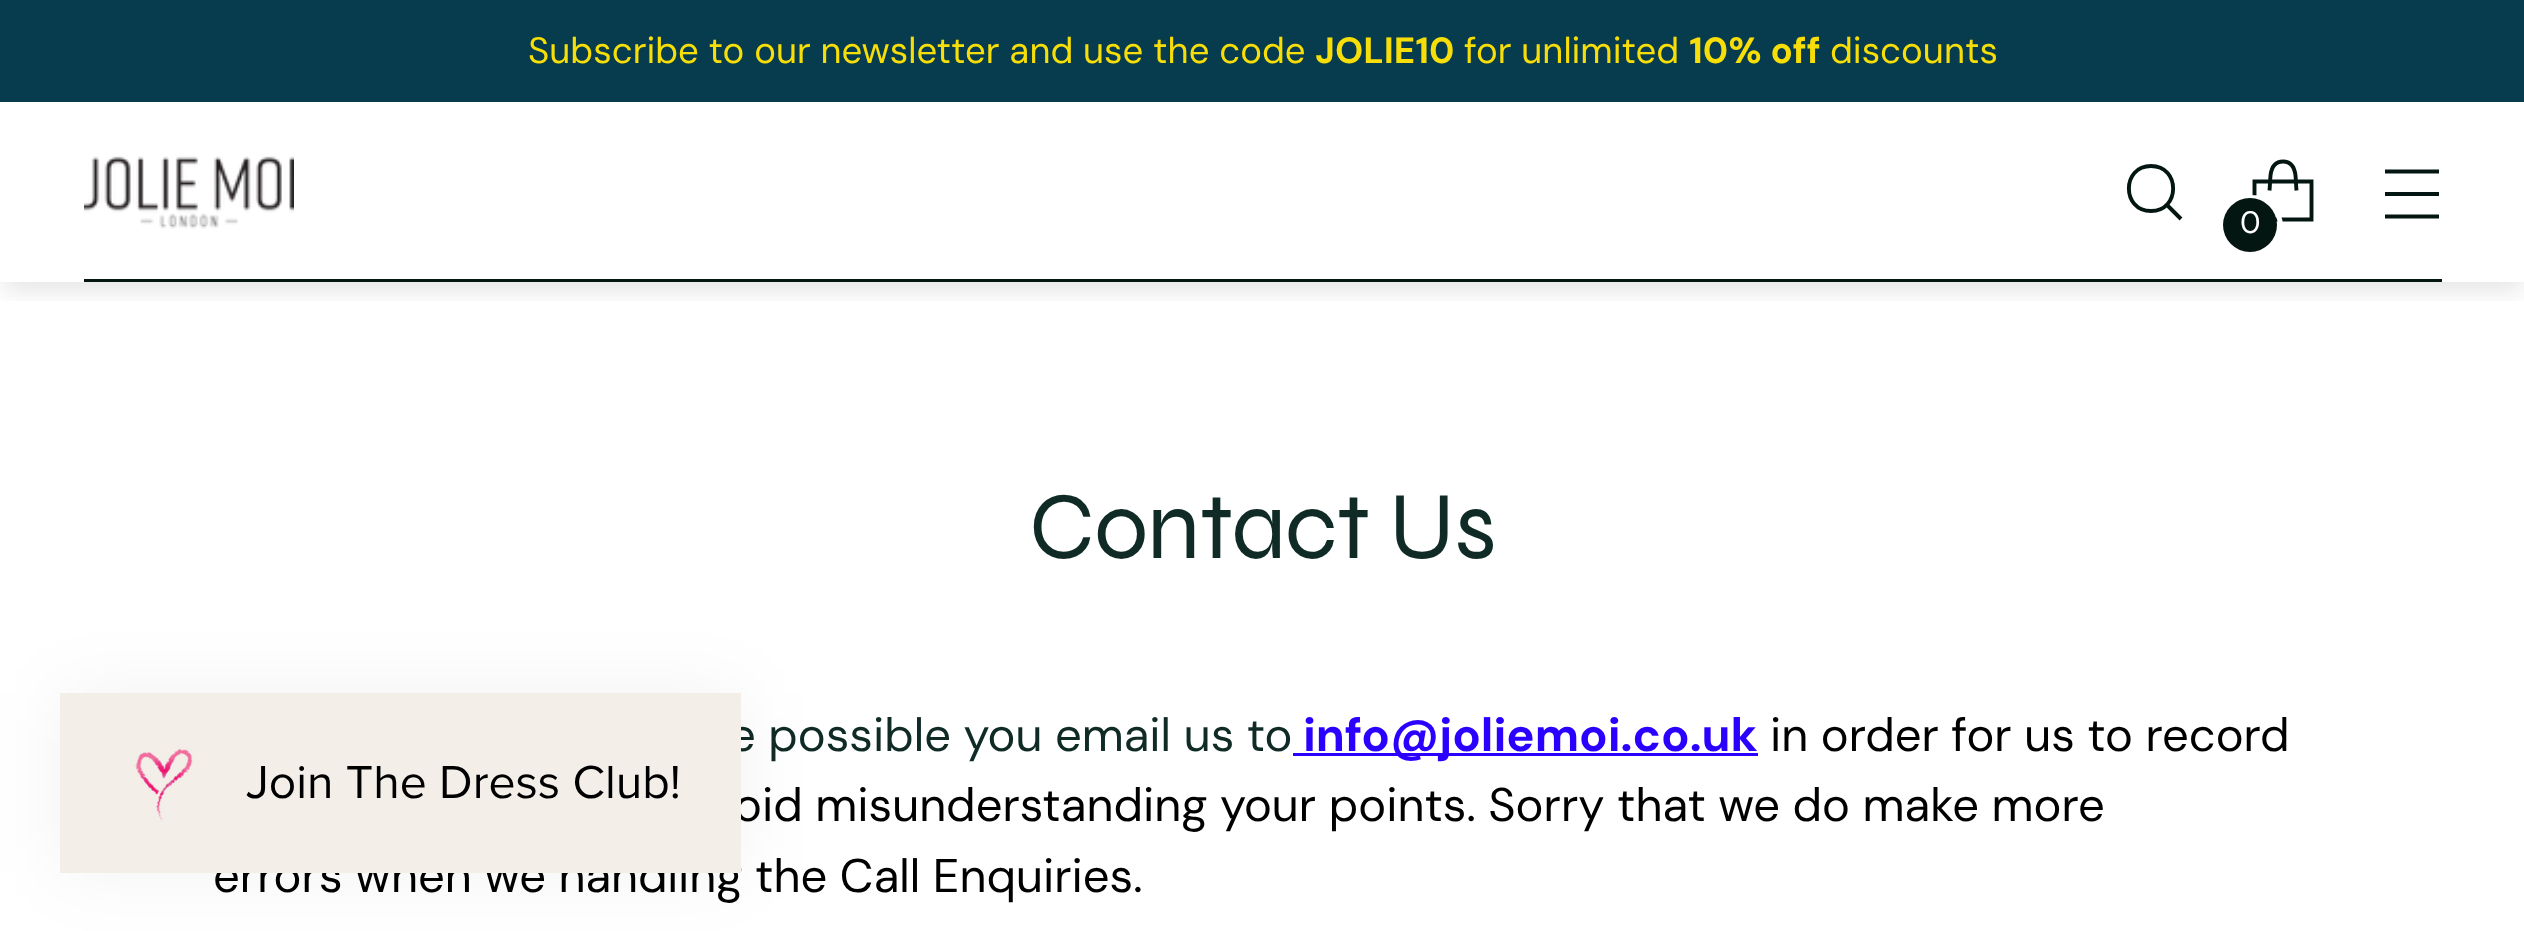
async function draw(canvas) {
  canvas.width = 2524;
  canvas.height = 931;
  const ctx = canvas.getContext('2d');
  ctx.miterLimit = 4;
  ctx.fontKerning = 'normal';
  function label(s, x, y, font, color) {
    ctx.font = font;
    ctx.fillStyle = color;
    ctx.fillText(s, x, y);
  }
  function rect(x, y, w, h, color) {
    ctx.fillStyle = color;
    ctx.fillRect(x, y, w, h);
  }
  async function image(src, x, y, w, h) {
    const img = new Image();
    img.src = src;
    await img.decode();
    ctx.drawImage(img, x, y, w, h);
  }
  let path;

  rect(0, 0, 2524, 931, '#fff');
  ctx.save();
  ctx.beginPath();
  ctx.rect(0, 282, 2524, 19);
  ctx.clip();
  ctx.fillStyle = '#0000001a';
  ctx.filter = 'blur(12px)';
  ctx.beginPath();
  ctx.rect(3, 117, 2520, 174);
  ctx.fill();
  ctx.filter = 'none';
  ctx.restore();
  rect(0, 0, 2524, 102, '#073b4e');
  label('Subscribe to our newsletter and use the code', 528, 63, '36.6px "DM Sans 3"', '#f7de08');
  label('JOLIE10', 1315, 63, 'bold 36.6px "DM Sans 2"', '#f7de08');
  label('for unlimited', 1464, 63, '36.6px "DM Sans 3"', '#f7de08');
  label('10% off', 1689, 63, 'bold 36.6px "DM Sans 2"', '#f7de08');
  label('discounts', 1830, 63, '36.6px "DM Sans 3"', '#f7de08');
  rect(84, 279, 2358, 3, '#031612');
  await image('assets/img1.png', 84, 156, 210, 73);
  path = new Path2D('M2151 211C2180.5 211 2180.5 166 2151 166C2121.5 166 2121.5 211 2151 211Z');
  ctx.strokeStyle = '#031612';
  ctx.lineWidth = 3.9;
  ctx.lineCap = 'round';
  ctx.stroke(path);
  path = new Path2D('M2167 205L2181 219');
  ctx.lineCap = 'butt';
  ctx.stroke(path);
  path = new Path2D('M2385 194H2439M2385 171.5H2439M2385 216.5H2439');
  ctx.stroke(path);
  path = new Path2D('M2296.5 190.5C2296 185.5 2296 180.5 2295.5 175.5C2294.5 167 2290.5 161.5 2283 161.5C2275.5 161.5 2271.5 167 2270.5 175.5C2270 180.5 2270 185.5 2269.5 190.5');
  ctx.lineJoin = 'bevel';
  ctx.stroke(path);
  path = new Path2D('M2311.5 219.5V181.5H2254.5V219.5Z');
  ctx.lineJoin = 'miter';
  ctx.stroke(path);
  ctx.beginPath();
  ctx.arc(2251.5, 226.5, 29, 0, 2 * Math.PI);
  ctx.strokeStyle = '#fff';
  ctx.lineWidth = 5;
  ctx.stroke();
  ctx.beginPath();
  ctx.arc(2250, 225, 27, 0, 2 * Math.PI);
  ctx.fill();
  label('0', 2240, 233, '31px "DM Sans 2"', '#fff');
  ctx.letterSpacing = '-1px';
  label('Contact Us', 1029, 558, '96px Syne', '#102b26');
  ctx.letterSpacing = '0px';
  label('e possible you email us to', 729, 751, '47.1px DM Sans', '#102b26');
  rect(1293, 753, 465, 3, '#2b00ff');
  label('info@joliemoi.co.uk', 1303, 751, 'bold 47.1px DM Sans', '#2b00ff');
  label('in order for us to record', 1770, 751, '47.1px DM Sans', '#000');
  label('oid misunderstanding your points. Sorry that we do make more', 734, 821, '47.1px DM Sans', '#000');
  label('errors when we handling the Call Enquiries.', 213, 892, '47.1px DM Sans', '#000');
  ctx.fillStyle = '#0000000d';
  ctx.filter = 'blur(37.5px)';
  ctx.beginPath();
  ctx.rect(60, 693, 681, 180);
  ctx.fill();
  ctx.filter = 'none';
  await image('assets/img2.png', 60, 693, 681, 180);
}

draw(document.querySelector('canvas'));
